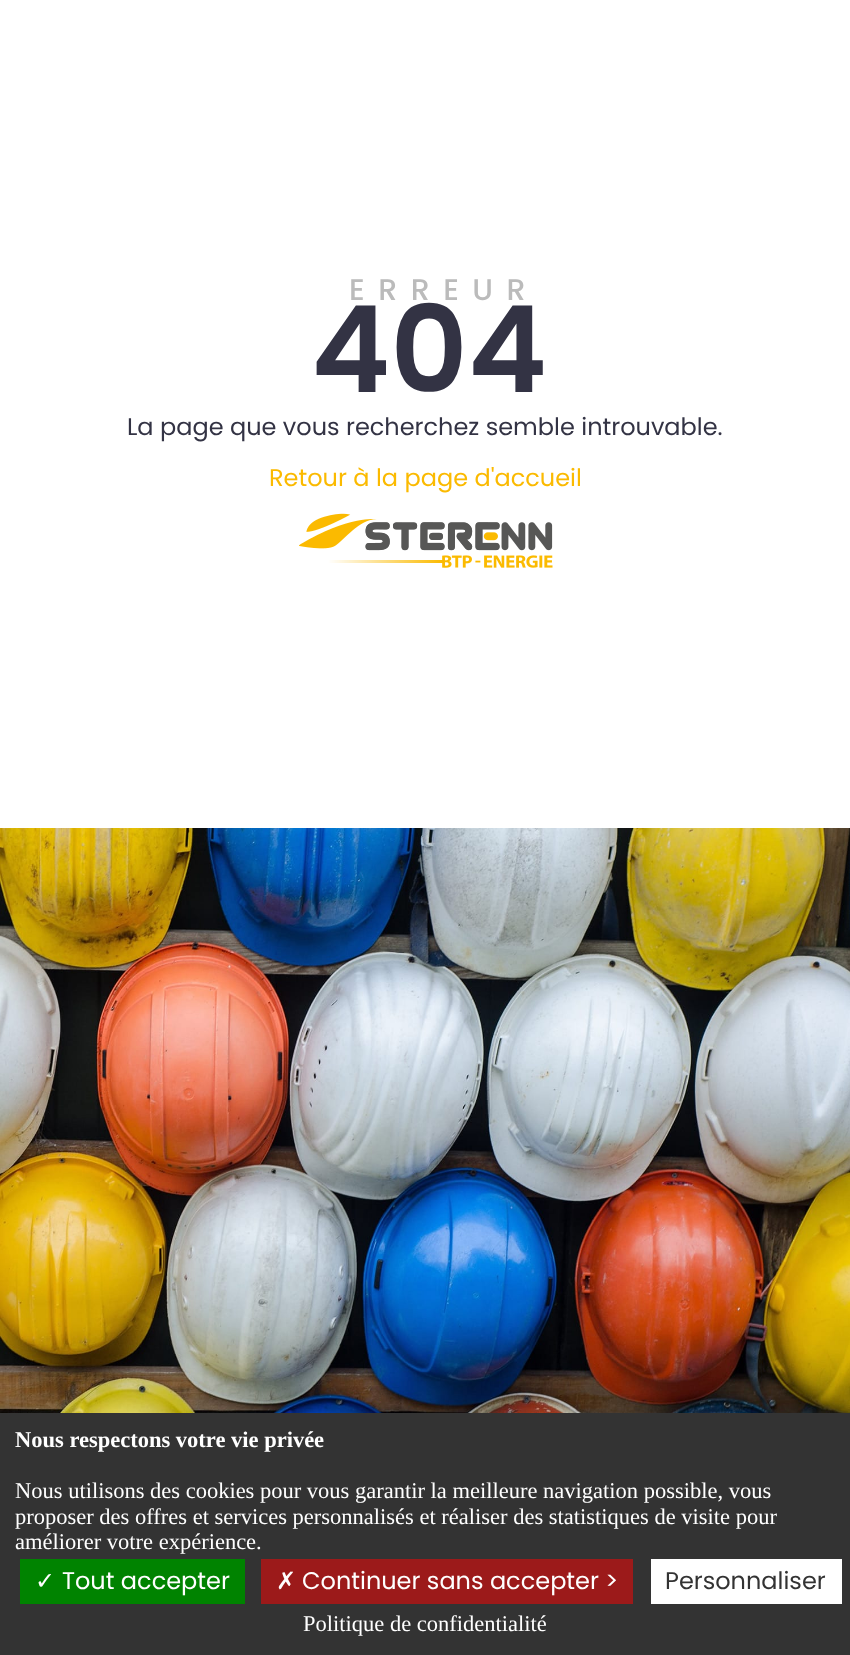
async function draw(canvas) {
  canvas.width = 850;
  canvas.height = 1655;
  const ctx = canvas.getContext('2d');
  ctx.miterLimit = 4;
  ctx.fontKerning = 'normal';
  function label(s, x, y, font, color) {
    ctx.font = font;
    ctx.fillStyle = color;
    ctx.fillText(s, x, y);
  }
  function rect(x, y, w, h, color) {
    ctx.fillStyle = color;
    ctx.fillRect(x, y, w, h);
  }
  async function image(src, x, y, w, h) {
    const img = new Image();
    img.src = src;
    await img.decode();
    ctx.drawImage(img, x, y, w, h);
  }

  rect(0, 0, 850, 1655, '#fff');
  ctx.letterSpacing = '13.5px';
  label('ERREUR', 349, 300, '500 30px Poppins', '#bbb');
  ctx.letterSpacing = '0px';
  label('404', 311, 392, '600 120px Poppins', '#334');
  label('La page que vous recherchez semble introuvable.', 127, 435, '24px Poppins', '#334');
  label('Retour à la page d\'accueil', 269, 486, '24px Poppins', '#fbba00');
  await image('assets/img1.png', 299, 513, 254, 55);
  await image('assets/img2.png', 0, 828, 850, 585);
  rect(0, 1413, 850, 242, '#333');
  label('Nous respectons votre vie privée', 15, 1447, 'bold 22.5px Liberation Serif', '#fff');
  label('Nous utilisons des cookies pour vous garantir la meilleure navigation possible, vous', 15, 1498, '22.5px Liberation Serif', '#fff');
  label('proposer des offres et services personnalisés et réaliser des statistiques de visite pour', 15, 1524, '22.5px Liberation Serif', '#fff');
  label('améliorer votre expérience.', 15, 1549, '22.5px Liberation Serif', '#fff');
  rect(20, 1559, 225, 45, '#008300');
  label('✓', 35, 1589, '24px DejaVu Sans', '#fff');
  label('Tout accepter', 62, 1589, '24px Poppins', '#fff');
  rect(261, 1559, 372, 45, '#9c1a1a');
  label('✗', 276, 1589, '24px DejaVu Sans', '#fff');
  label('Continuer sans accepter >', 302, 1589, '24px Poppins', '#fff');
  rect(651, 1559, 191, 45, '#fff');
  label('Personnaliser', 665, 1589, '24px Poppins', '#333');
  label('Politique de confidentialité', 303, 1631, '22.5px Liberation Serif', '#fff');
}

draw(document.querySelector('canvas'));
